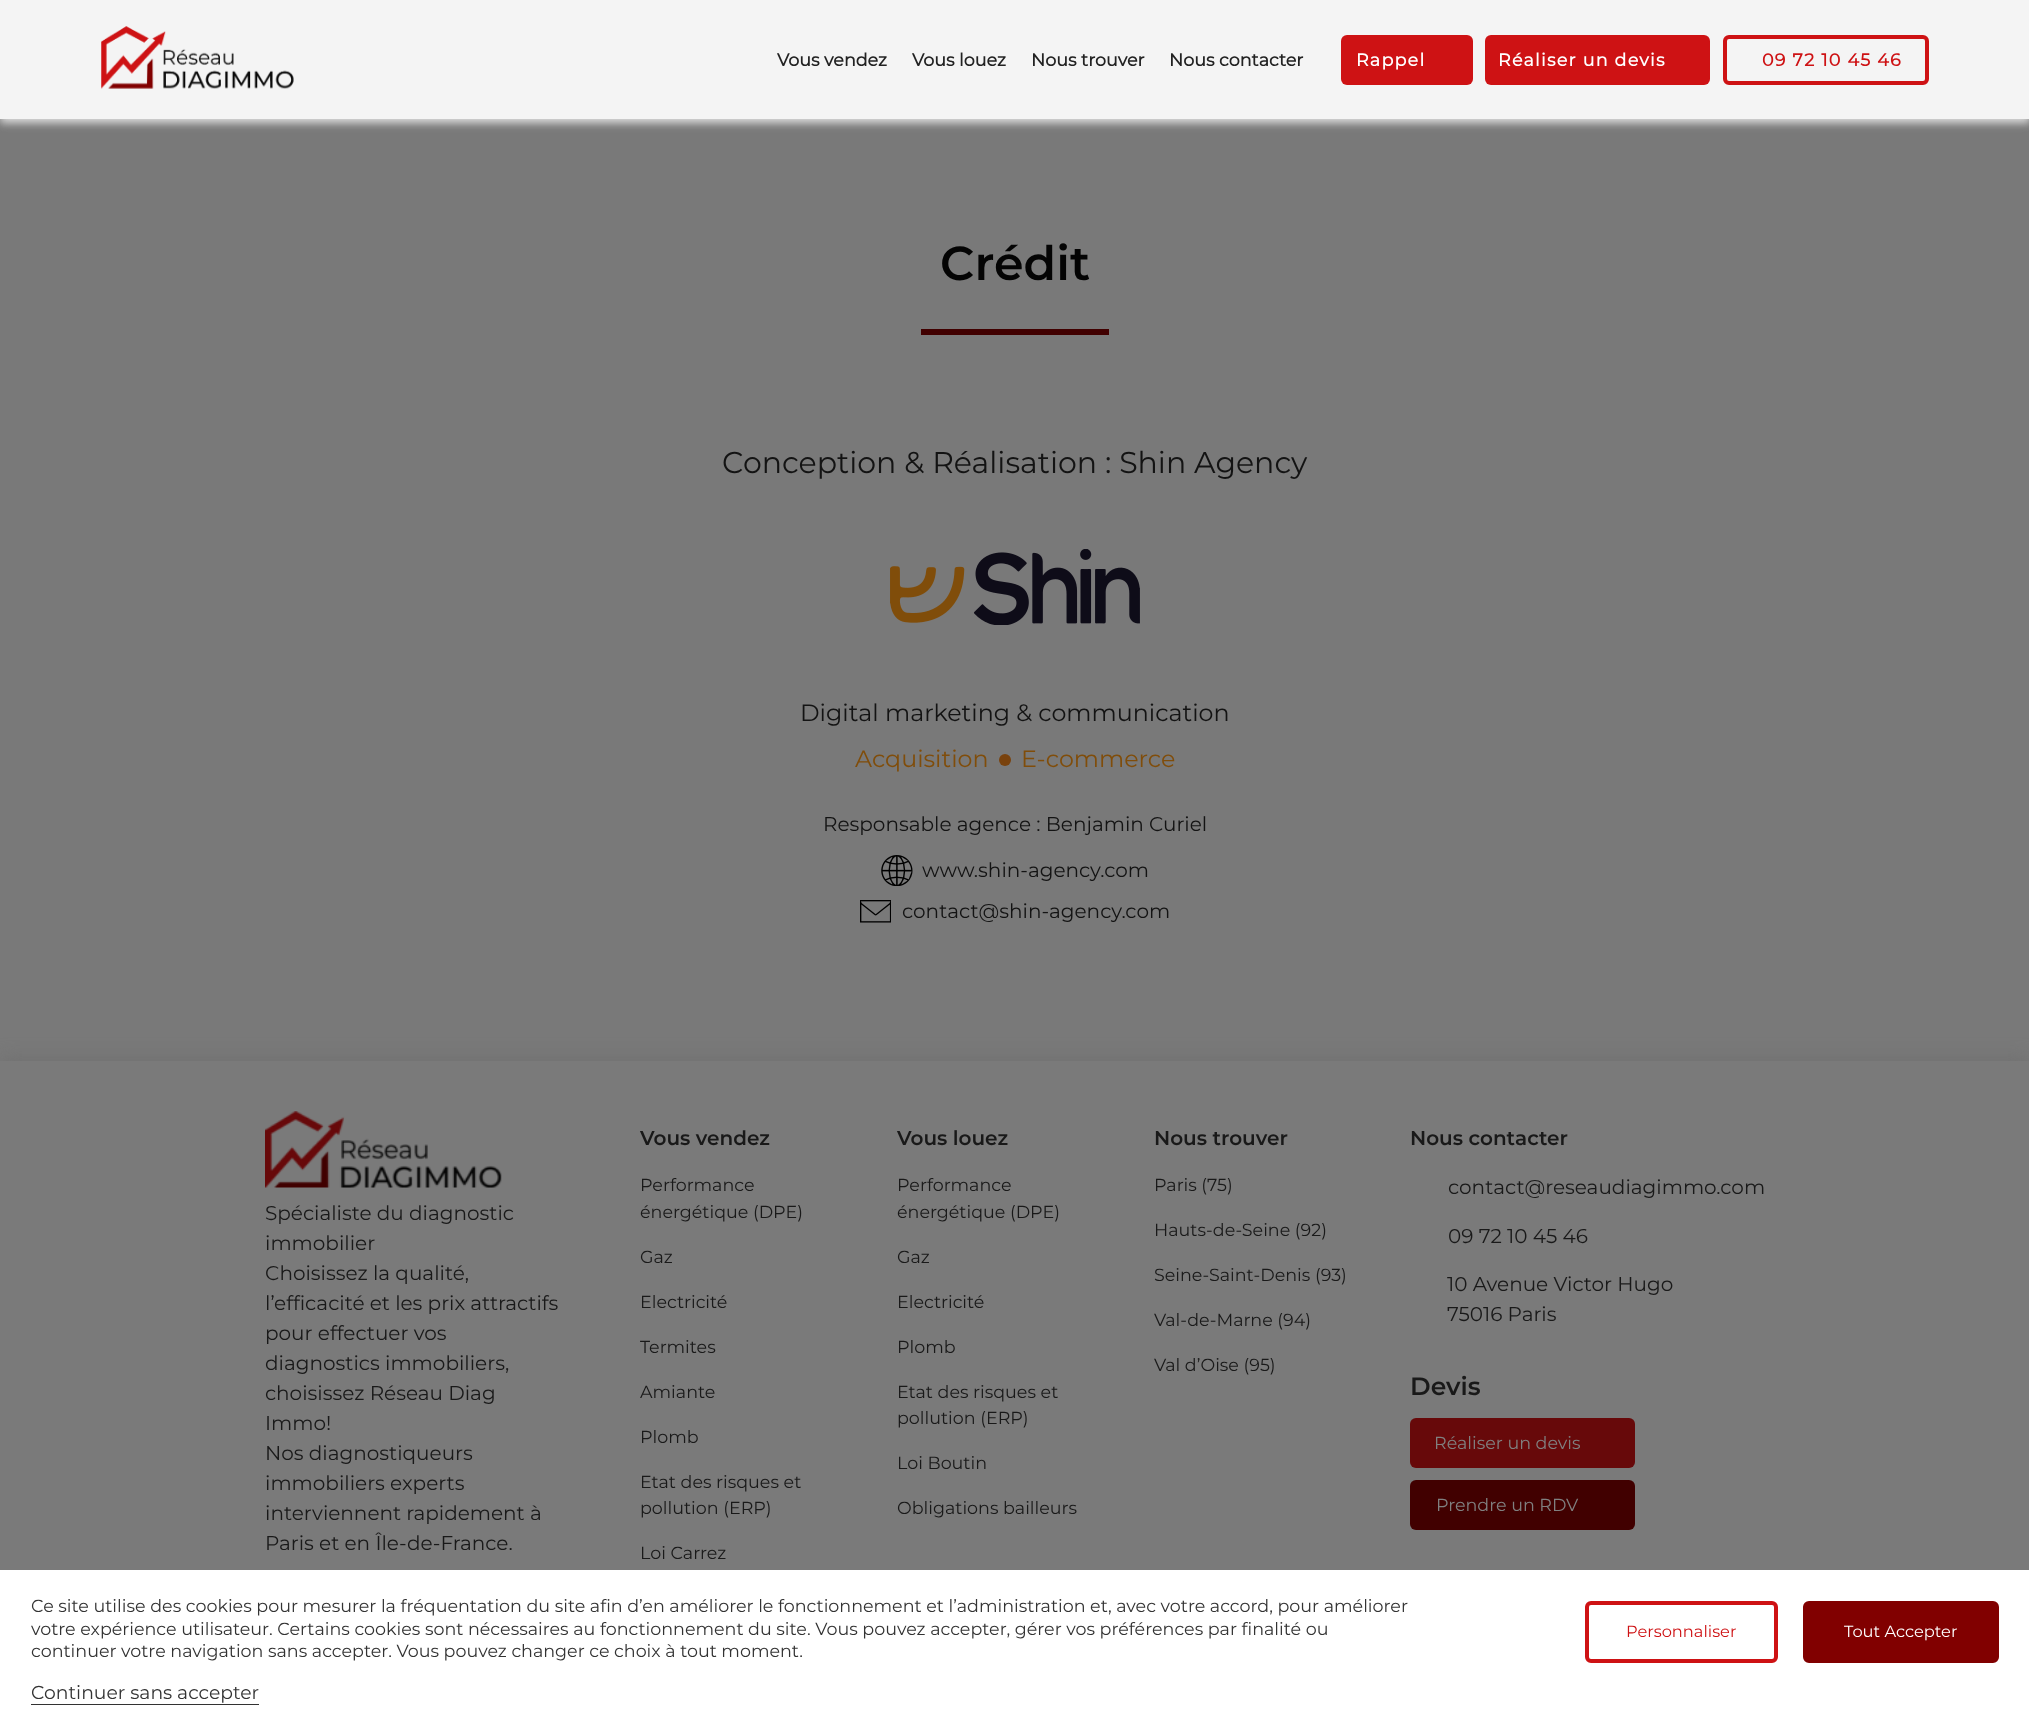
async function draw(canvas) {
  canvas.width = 2029;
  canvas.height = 1726;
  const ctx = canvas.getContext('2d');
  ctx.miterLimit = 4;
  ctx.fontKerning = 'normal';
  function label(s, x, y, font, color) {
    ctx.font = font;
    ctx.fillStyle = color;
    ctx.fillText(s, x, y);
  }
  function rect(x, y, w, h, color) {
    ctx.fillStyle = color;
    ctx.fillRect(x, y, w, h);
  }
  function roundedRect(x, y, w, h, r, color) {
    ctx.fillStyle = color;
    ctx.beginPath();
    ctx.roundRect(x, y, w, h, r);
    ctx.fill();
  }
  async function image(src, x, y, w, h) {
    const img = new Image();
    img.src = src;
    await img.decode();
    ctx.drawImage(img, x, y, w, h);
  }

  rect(0, 0, 2029, 1726, '#797979');
  ctx.fillStyle = '#dedede';
  ctx.filter = 'blur(4px)';
  ctx.beginPath();
  ctx.rect(0, 4, 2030, 119);
  ctx.fill();
  ctx.filter = 'none';
  rect(0, 0, 2029, 119, '#f4f4f4');
  await image('assets/img1.png', 101, 26, 193, 63);
  label('Vous vendez', 777, 66, 'bold 17.5px Montserrat', '#222');
  label('Vous louez', 912, 66, 'bold 17.5px Montserrat', '#222');
  label('Nous trouver', 1031, 66, 'bold 17.5px Montserrat', '#222');
  label('Nous contacter', 1169, 66, 'bold 17.5px Montserrat', '#222');
  roundedRect(1341, 35, 132, 50, 6, '#ce1214');
  ctx.letterSpacing = '1.25px';
  label('Rappel', 1356, 66, 'bold 17.5px Montserrat', '#fff');
  roundedRect(1485, 35, 225, 50, 6, '#ce1214');
  label('Réaliser un devis', 1498, 66, 'bold 17.5px Montserrat', '#fff');
  ctx.beginPath();
  ctx.roundRect(1725, 37, 202, 46, 4);
  ctx.strokeStyle = '#ce1214';
  ctx.lineWidth = 4;
  ctx.stroke();
  label('09 72 10 45 46', 1762, 66, 'bold 17.5px Montserrat', '#ce1214');
  ctx.letterSpacing = '0px';
  label('Crédit', 940, 280, '600 47.5px Montserrat', '#040404');
  rect(921, 329, 188, 6, '#410000');
  label('Conception & Réalisation : Shin Agency', 722, 473, '30px Montserrat', '#131313');
  await image('assets/img2.png', 890, 549, 250, 76);
  label('Digital marketing & communication', 800, 721, '23.75px Montserrat', '#131313');
  label('Acquisition', 855, 767, '23.75px Montserrat', '#804d0a');
  ctx.fillStyle = '#79420d';
  ctx.beginPath();
  ctx.arc(1005, 760, 6, 0, 2 * Math.PI);
  ctx.fill();
  label('E-commerce', 1021, 767, '23.75px Montserrat', '#804d0a');
  label('Responsable agence : Benjamin Curiel', 823, 831, '20px Montserrat', '#131313');
  await image('assets/img3.png', 881, 855, 32, 31);
  label('www.shin-agency.com', 922, 877, '20px Montserrat', '#131313');
  await image('assets/img4.png', 860, 900, 31, 23);
  label('contact@shin-agency.com', 902, 918, '20px Montserrat', '#131313');
  ctx.fillStyle = '#6f6f6f';
  ctx.filter = 'blur(9.5px)';
  ctx.beginPath();
  ctx.rect(0, 1060, 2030, 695);
  ctx.fill();
  ctx.filter = 'none';
  rect(0, 1061, 2029, 509, '#7a7a7a');
  await image('assets/img5.png', 265, 1111, 237, 77);
  label('Spécialiste du diagnostic', 265, 1220, '20px Montserrat', '#191919');
  label('immobilier', 265, 1250, '20px Montserrat', '#191919');
  label('Choisissez la qualité,', 265, 1280, '20px Montserrat', '#191919');
  label('l’efficacité et les prix attractifs', 265, 1310, '20px Montserrat', '#191919');
  label('pour effectuer vos', 265, 1340, '20px Montserrat', '#191919');
  label('diagnostics immobiliers,', 265, 1370, '20px Montserrat', '#191919');
  label('choisissez Réseau Diag', 265, 1400, '20px Montserrat', '#191919');
  label('Immo!', 265, 1430, '20px Montserrat', '#191919');
  label('Nos diagnostiqueurs', 265, 1460, '20px Montserrat', '#191919');
  label('immobiliers experts', 265, 1490, '20px Montserrat', '#191919');
  label('interviennent rapidement à', 265, 1520, '20px Montserrat', '#191919');
  label('Paris et en Île-de-France.', 265, 1550, '20px Montserrat', '#191919');
  label('Vous vendez', 640, 1145, '600 20px Montserrat', '#191919');
  label('Performance', 640, 1191, '17.5px Montserrat', '#191919');
  label('énergétique (DPE)', 640, 1218, '17.5px Montserrat', '#191919');
  label('Gaz', 640, 1263, '17.5px Montserrat', '#191919');
  label('Electricité', 640, 1308, '17.5px Montserrat', '#191919');
  label('Termites', 640, 1353, '17.5px Montserrat', '#191919');
  label('Amiante', 640, 1398, '17.5px Montserrat', '#191919');
  label('Plomb', 640, 1443, '17.5px Montserrat', '#191919');
  label('Etat des risques et', 640, 1488, '17.5px Montserrat', '#191919');
  label('pollution (ERP)', 640, 1514, '17.5px Montserrat', '#191919');
  label('Loi Carrez', 640, 1559, '17.5px Montserrat', '#191919');
  label('Vous louez', 897, 1145, '600 20px Montserrat', '#191919');
  label('Performance', 897, 1191, '17.5px Montserrat', '#191919');
  label('énergétique (DPE)', 897, 1218, '17.5px Montserrat', '#191919');
  label('Gaz', 897, 1263, '17.5px Montserrat', '#191919');
  label('Electricité', 897, 1308, '17.5px Montserrat', '#191919');
  label('Plomb', 897, 1353, '17.5px Montserrat', '#191919');
  label('Etat des risques et', 897, 1398, '17.5px Montserrat', '#191919');
  label('pollution (ERP)', 897, 1424, '17.5px Montserrat', '#191919');
  label('Loi Boutin', 897, 1469, '17.5px Montserrat', '#191919');
  label('Obligations bailleurs', 897, 1514, '17.5px Montserrat', '#191919');
  label('Nous trouver', 1154, 1145, '600 20px Montserrat', '#191919');
  label('Paris (75)', 1154, 1191, '17.5px Montserrat', '#191919');
  label('Hauts-de-Seine (92)', 1154, 1236, '17.5px Montserrat', '#191919');
  label('Seine-Saint-Denis (93)', 1154, 1281, '17.5px Montserrat', '#191919');
  label('Val-de-Marne (94)', 1154, 1326, '17.5px Montserrat', '#191919');
  label('Val d’Oise (95)', 1154, 1371, '17.5px Montserrat', '#191919');
  label('Nous contacter', 1410, 1145, '600 20px Montserrat', '#191919');
  label('contact@reseaudiagimmo.com', 1448, 1194, '20px Montserrat', '#191919');
  label('09 72 10 45 46', 1448, 1243, '20px Montserrat', '#191919');
  label('10 Avenue Victor Hugo', 1447, 1291, '20px Montserrat', '#191919');
  label('75016 Paris', 1447, 1321, '20px Montserrat', '#191919');
  label('Devis', 1410, 1395, '600 25px Montserrat', '#191919');
  roundedRect(1410, 1418, 225, 50, 6, '#67090a');
  label('Réaliser un devis', 1434, 1449, '17.5px Montserrat', '#808080');
  roundedRect(1410, 1480, 225, 50, 6, '#410000');
  label('Prendre un RDV', 1436, 1511, '17.5px Montserrat', '#808080');
  rect(0, 1570, 2029, 156, '#fff');
  label('Ce site utilise des cookies pour mesurer la fréquentation du site afin d’en améliorer le fonctionnement et l’administration et, avec votre accord, pour améliorer', 31, 1612, '17.5px Montserrat', '#333');
  label('votre expérience utilisateur. Certains cookies sont nécessaires au fonctionnement du site. Vous pouvez accepter, gérer vos préférences par finalité ou', 31, 1635, '17.5px Montserrat', '#333');
  label('continuer votre navigation sans accepter. Vous pouvez changer ce choix à tout moment.', 31, 1657, '17.5px Montserrat', '#333');
  ctx.beginPath();
  ctx.roundRect(1587, 1603, 189, 58, 4);
  ctx.stroke();
  label('Personnaliser', 1626, 1637, '16.25px Montserrat', '#ce1214');
  ctx.fillStyle = '#810000';
  ctx.beginPath();
  ctx.roundRect(1805, 1603, 192, 58, 4);
  ctx.fill();
  ctx.strokeStyle = '#810000';
  ctx.stroke();
  label('Tout Accepter', 1844, 1637, '16.25px Montserrat', '#fff');
  label('Continuer sans accepter', 31, 1699, '18.75px Montserrat', '#333');
  rect(31, 1704, 228, 1, '#333');
}

draw(document.querySelector('canvas'));
